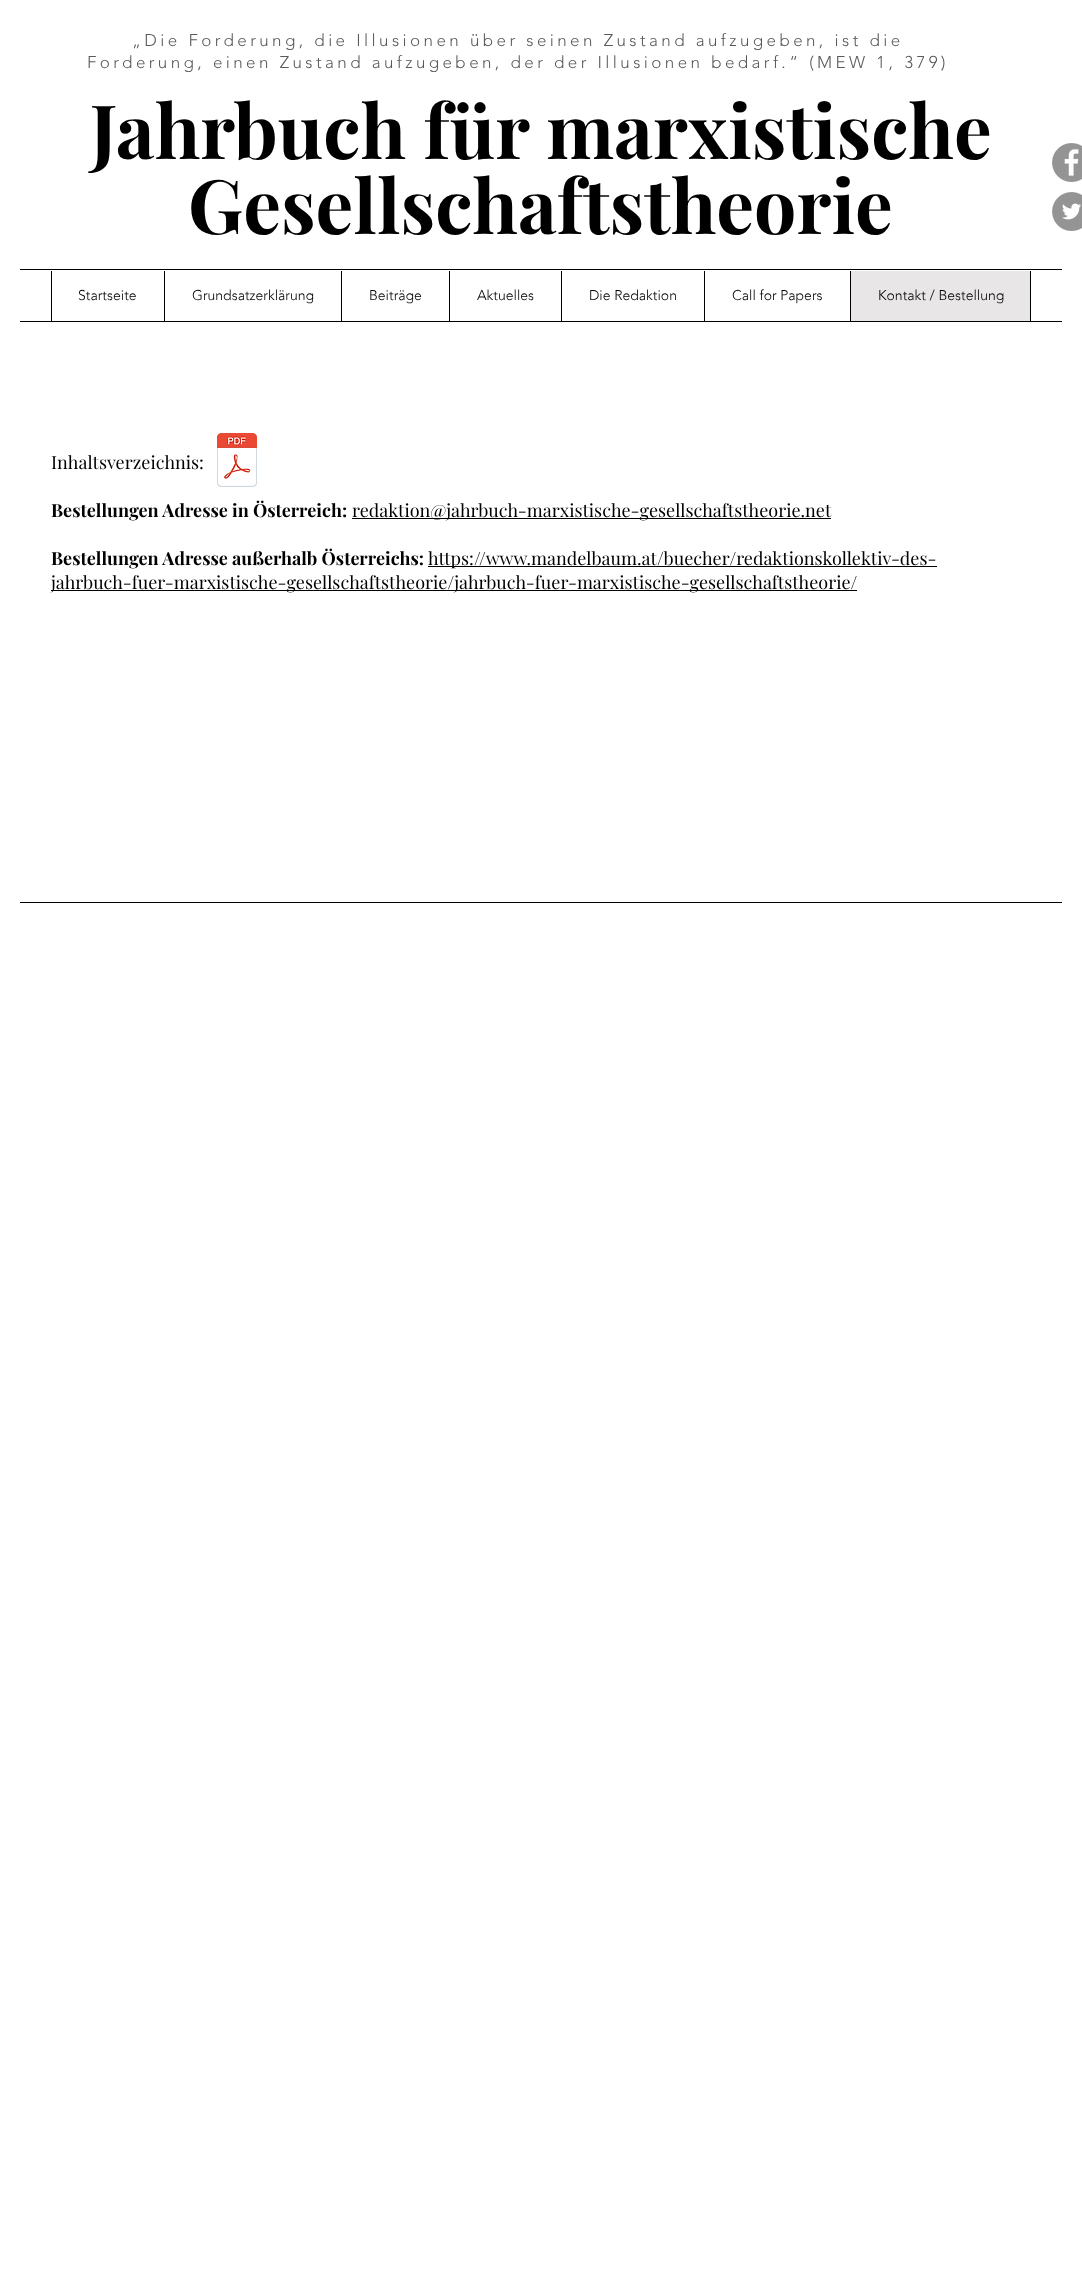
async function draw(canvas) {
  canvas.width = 1082;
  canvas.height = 2284;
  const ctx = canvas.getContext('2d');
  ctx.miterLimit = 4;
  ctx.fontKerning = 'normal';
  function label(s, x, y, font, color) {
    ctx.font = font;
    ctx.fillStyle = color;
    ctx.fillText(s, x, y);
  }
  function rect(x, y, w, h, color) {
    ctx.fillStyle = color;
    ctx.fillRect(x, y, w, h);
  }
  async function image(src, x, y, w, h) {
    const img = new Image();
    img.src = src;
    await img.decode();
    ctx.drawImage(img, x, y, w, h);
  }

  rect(0, 0, 1082, 2284, '#fff');
  ctx.letterSpacing = '3.4px';
  label('„Die Forderung, die Illusionen über seinen Zustand aufzugeben, ist die', 132, 46, '300 17px "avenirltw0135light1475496"', '#595959');
  label('Forderung, einen Zustand aufzugeben, der der Illusionen bedarf.“ (MEW 1, 379)', 87, 68, '300 17px "avenirltw0135light1475496"', '#595959');
  ctx.letterSpacing = '0px';
  label('Jahrbuch für marxistische', 90, 159, 'bold 75px Playfair Display', '#000');
  label('Gesellschaftstheorie', 188, 234, 'bold 75px Playfair Display', '#000');
  await image('assets/img1.png', 1052, 143, 30, 39);
  await image('assets/img2.png', 1052, 192, 30, 39);
  rect(20, 269, 1042, 1, '#000');
  rect(51, 271, 1, 50, '#000');
  label('Startseite', 78, 300, '300 14px "avenirltw0135light1475496"', '#000');
  rect(164, 271, 1, 50, '#000');
  label('Grundsatzerklärung', 192, 300, '300 14px "avenirltw0135light1475496"', '#000');
  rect(341, 271, 1, 50, '#000');
  label('Beiträge', 369, 300, '300 14px "avenirltw0135light1475496"', '#000');
  rect(449, 271, 1, 50, '#000');
  label('Aktuelles', 477, 300, '300 14px "avenirltw0135light1475496"', '#000');
  rect(561, 271, 1, 50, '#000');
  label('Die Redaktion', 589, 300, '300 14px "avenirltw0135light1475496"', '#000');
  rect(704, 271, 1, 50, '#000');
  label('Call for Papers', 732, 300, '300 14px "avenirltw0135light1475496"', '#000');
  rect(851, 271, 179, 50, '#e8e6e6');
  rect(850, 271, 1, 50, '#000');
  label('Kontakt / Bestellung', 878, 300, '300 14px "avenirltw0135light1475496"', '#000');
  rect(1030, 271, 1, 50, '#000');
  rect(20, 321, 1042, 1, '#000');
  await image('assets/img3.png', 217, 433, 40, 54);
  label('Inhaltsverzeichnis:', 51, 469, '18px Playfair Display', '#000');
  label('Bestellungen Adresse in Österreich:', 51, 517, 'bold 18px "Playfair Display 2"', '#000');
  rect(352, 518, 479, 1, '#000');
  label('redaktion@jahrbuch-marxistische-gesellschaftstheorie.net', 352, 517, '18px Playfair Display', '#000');
  label('Bestellungen Adresse außerhalb Österreichs:', 51, 565, 'bold 18px "Playfair Display 2"', '#000');
  rect(428, 566, 509, 1, '#000');
  label('https://www.mandelbaum.at/buecher/redaktionskollektiv-des-', 428, 565, '18px Playfair Display', '#000');
  rect(51, 590, 806, 1, '#000');
  label('jahrbuch-fuer-marxistische-gesellschaftstheorie/jahrbuch-fuer-marxistische-gesellschaftstheorie/', 51, 589, '18px Playfair Display', '#000');
  rect(20, 902, 1042, 1, '#000');
}

draw(document.querySelector('canvas'));
